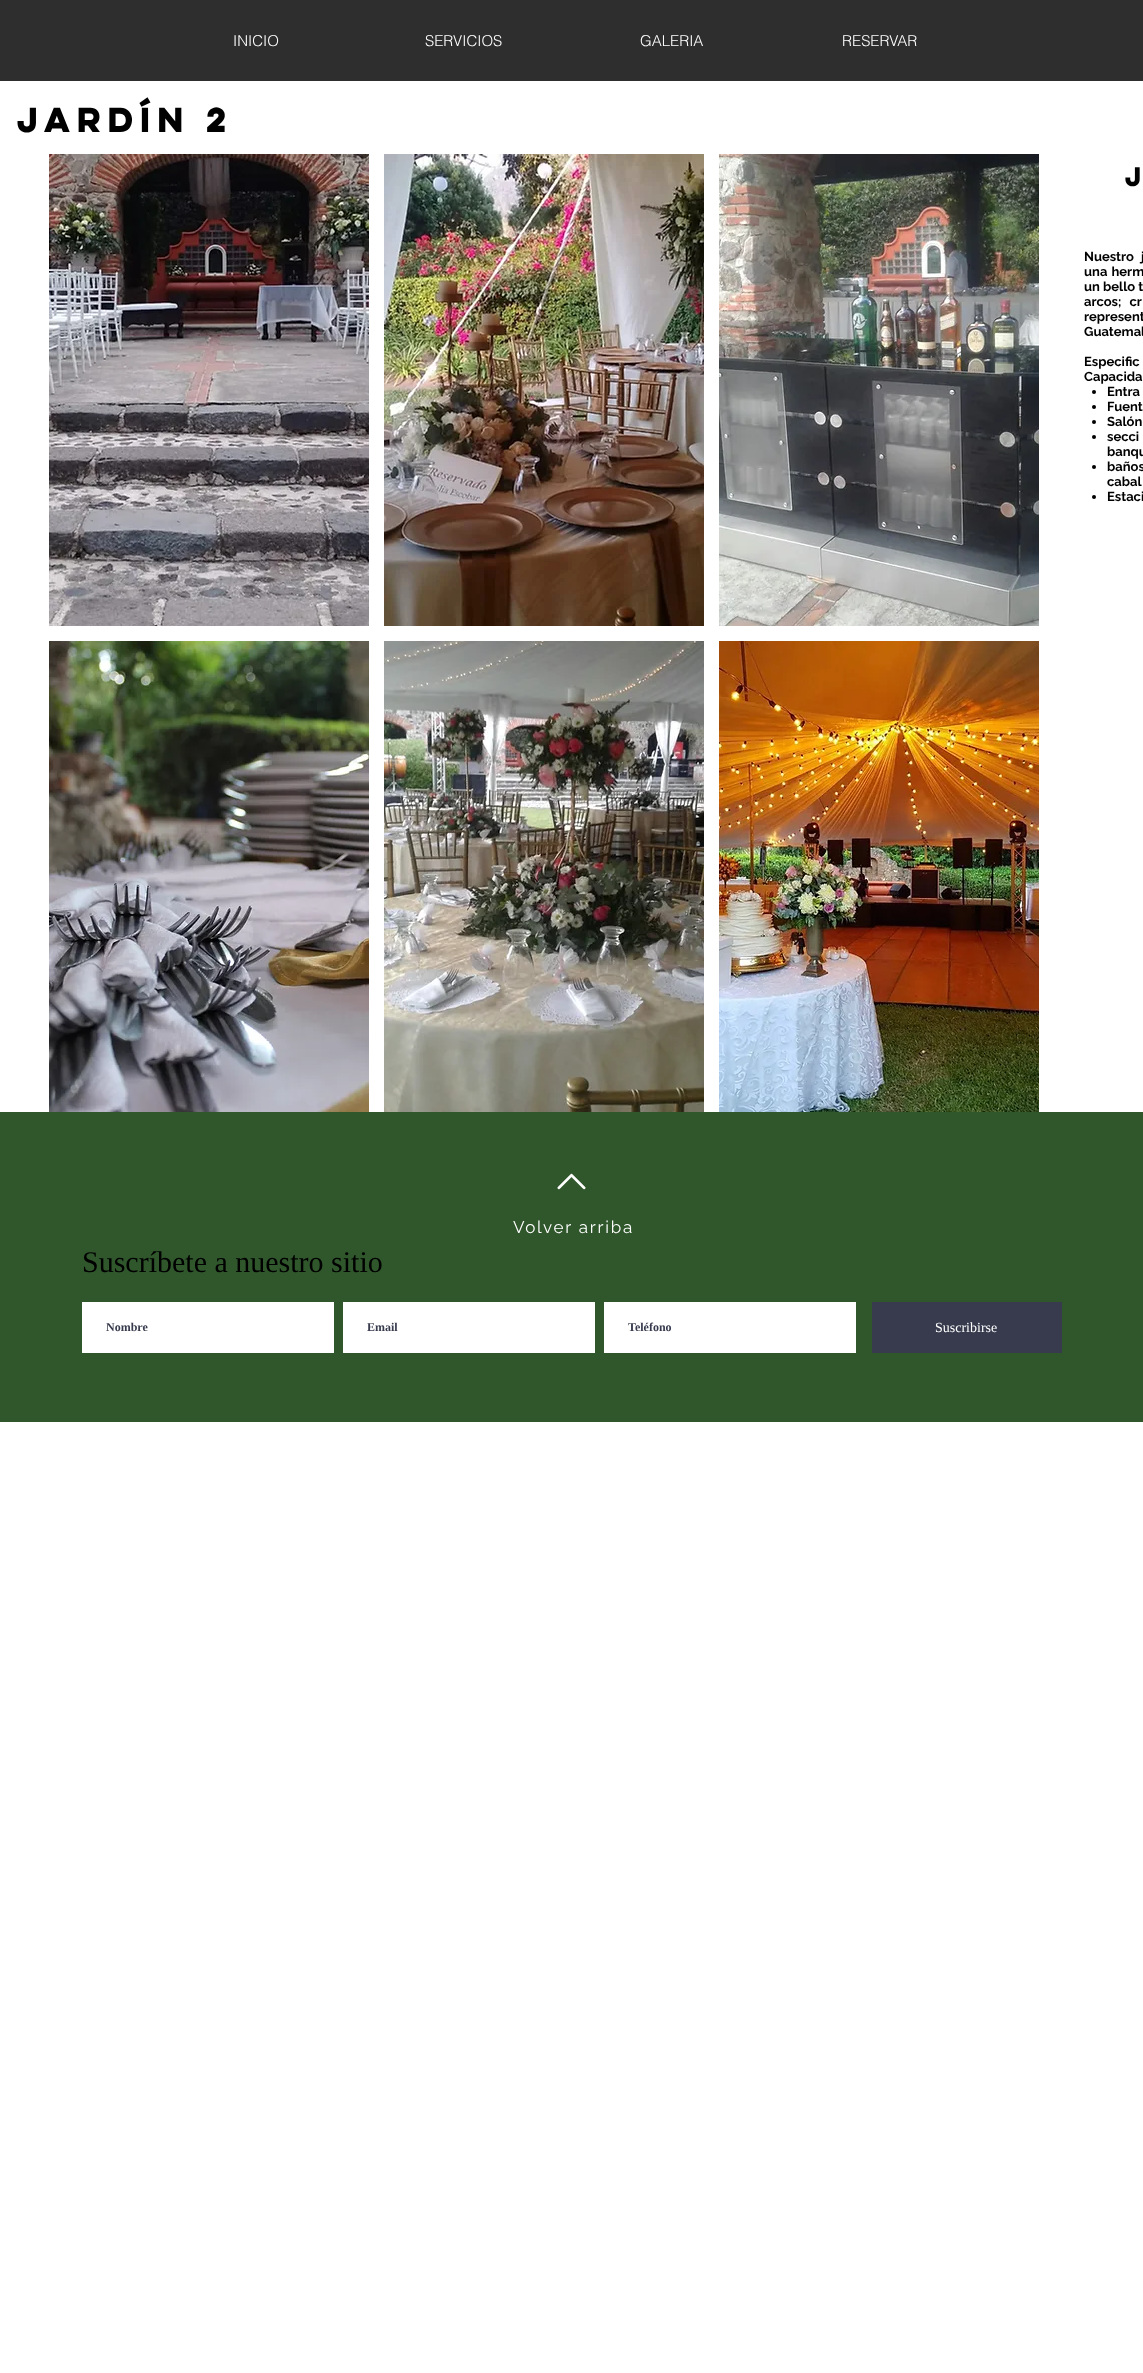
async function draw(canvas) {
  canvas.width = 1143;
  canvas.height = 2373;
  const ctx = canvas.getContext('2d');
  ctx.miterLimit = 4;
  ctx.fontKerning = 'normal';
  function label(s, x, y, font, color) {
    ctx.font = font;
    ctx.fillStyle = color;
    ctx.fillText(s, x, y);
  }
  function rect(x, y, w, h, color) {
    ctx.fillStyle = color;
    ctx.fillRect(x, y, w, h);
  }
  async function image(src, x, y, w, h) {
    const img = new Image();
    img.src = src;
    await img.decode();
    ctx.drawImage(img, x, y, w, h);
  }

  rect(0, 0, 1143, 2373, '#fff');
  rect(0, 0, 1143, 81, '#2f2e2e');
  label('INICIO', 233, 46, '300 15px helvetica', '#fff');
  label('SERVICIOS', 425, 46, '300 15px helvetica', '#fff');
  label('GALERIA', 640, 46, '300 15px helvetica', '#fff');
  label('RESERVAR', 842, 46, '300 15px helvetica', '#fff');
  label('JARDÍN 2', 17, 132, 'bold 31px "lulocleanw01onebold"', '#000');
  await image('assets/img1.png', 49, 154, 320, 472);
  await image('assets/img2.png', 384, 154, 320, 472);
  await image('assets/img3.png', 719, 154, 320, 472);
  await image('assets/img4.png', 49, 641, 320, 471);
  await image('assets/img5.png', 384, 641, 320, 471);
  await image('assets/img6.png', 719, 641, 320, 471);
  label('J', 1125, 186, 'bold 24px "lulocleanw01onebold"', '#000');
  ctx.wordSpacing = '4px';
  label('Nuestro j', 1084, 261, 'bold 13px Raleway', '#000');
  ctx.wordSpacing = '1px';
  label('una herm', 1084, 276, 'bold 13px Raleway', '#000');
  ctx.wordSpacing = '0px';
  label('un bello t', 1084, 291, 'bold 13px Raleway', '#000');
  ctx.wordSpacing = '5px';
  label('arcos; cr', 1084, 306, 'bold 13px Raleway', '#000');
  ctx.wordSpacing = '22px';
  label('represent', 1084, 321, 'bold 13px Raleway', '#000');
  ctx.wordSpacing = '0px';
  label('Guatemal', 1084, 336, 'bold 13px Raleway', '#000');
  label('Especific', 1084, 366, 'bold 13px Raleway', '#000');
  label('Capacida', 1084, 381, 'bold 13px Raleway', '#000');
  ctx.beginPath();
  ctx.arc(1094, 392, 2, 0, 2 * Math.PI);
  ctx.fill();
  label('Entra', 1107, 396, 'bold 13px Raleway', '#000');
  ctx.beginPath();
  ctx.arc(1094, 407, 2, 0, 2 * Math.PI);
  ctx.fill();
  label('Fuent', 1107, 411, 'bold 13px Raleway', '#000');
  ctx.beginPath();
  ctx.arc(1094, 422, 2, 0, 2 * Math.PI);
  ctx.fill();
  label('Salón', 1107, 426, 'bold 13px Raleway', '#000');
  ctx.beginPath();
  ctx.arc(1094, 437, 2, 0, 2 * Math.PI);
  ctx.fill();
  label('secci', 1107, 441, 'bold 13px Raleway', '#000');
  label('banqu', 1107, 456, 'bold 13px Raleway', '#000');
  ctx.beginPath();
  ctx.arc(1094, 467, 2, 0, 2 * Math.PI);
  ctx.fill();
  label('baños', 1107, 471, 'bold 13px Raleway', '#000');
  label('cabal', 1107, 486, 'bold 13px Raleway', '#000');
  ctx.beginPath();
  ctx.arc(1094, 497, 2, 0, 2 * Math.PI);
  ctx.fill();
  label('Estaci', 1107, 501, 'bold 13px Raleway', '#000');
  rect(0, 1112, 1143, 310, '#30572c');
  await image('assets/img7.png', 557, 1173, 29, 17);
  ctx.letterSpacing = '1.75px';
  label('Volver arriba', 513, 1233, '17px Raleway', '#fff');
  ctx.letterSpacing = '0px';
  label('Suscríbete a nuestro sitio', 82, 1272, '30px Liberation Serif', '#000');
  rect(82, 1302, 252, 51, '#fff');
  label('Nombre', 106, 1331, 'bold 12px Liberation Serif', '#373b4d');
  rect(343, 1302, 252, 51, '#fff');
  label('Email', 367, 1331, 'bold 12px Liberation Serif', '#373b4d');
  rect(604, 1302, 252, 51, '#fff');
  ctx.save();
  ctx.beginPath();
  ctx.rect(628, 1320, 225, 15);
  ctx.clip();
  label('Teléfono', 628, 1331, 'bold 12px Liberation Serif', '#373b4d');
  ctx.restore();
  rect(872, 1302, 190, 51, '#373b4d');
  label('Suscribirse', 935, 1332, '14px Liberation Serif', '#fff');
}

draw(document.querySelector('canvas'));
